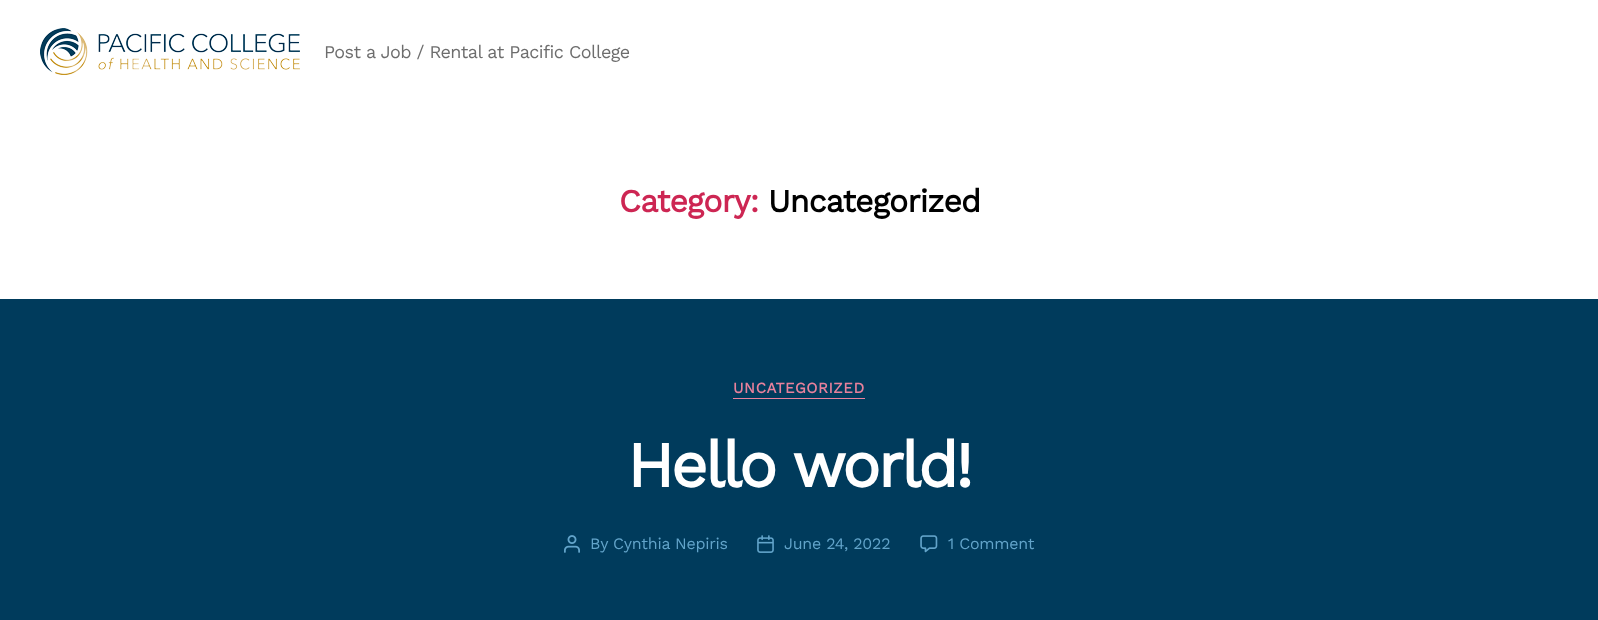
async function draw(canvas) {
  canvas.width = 1598;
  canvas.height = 620;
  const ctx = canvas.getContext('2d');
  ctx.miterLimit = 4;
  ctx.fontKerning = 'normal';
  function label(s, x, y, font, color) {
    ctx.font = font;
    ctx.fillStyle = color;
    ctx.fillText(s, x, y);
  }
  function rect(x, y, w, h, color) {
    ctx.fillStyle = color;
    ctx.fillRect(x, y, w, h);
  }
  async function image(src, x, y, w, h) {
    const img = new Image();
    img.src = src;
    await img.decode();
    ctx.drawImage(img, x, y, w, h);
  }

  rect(0, 0, 1598, 620, '#003b5c');
  rect(0, 0, 1598, 299, '#fff');
  await image('assets/img1.png', 40, 28, 260, 47);
  ctx.letterSpacing = '-0.55px';
  label('Post a Job / Rental at Pacific College', 324, 58, '18px Work Sans', '#6d6d6d');
  ctx.letterSpacing = '-0.8px';
  label('Category:', 619, 212, 'bold 32px Work Sans', '#cd2653');
  label('Uncategorized', 768, 212, 'bold 32px Work Sans', '#000');
  rect(733, 398, 132, 1, '#e8819c');
  ctx.letterSpacing = '0.5px';
  label('UNCATEGORIZED', 733, 393, 'bold 15px Work Sans', '#e8819c');
  ctx.letterSpacing = '-2.7px';
  label('Hello world!', 627, 487, 'bold 64px Work Sans', '#fff');
  await image('assets/img2.png', 564, 535, 16, 18);
  ctx.letterSpacing = '-0.25px';
  label('By Cynthia Nepiris', 590, 549, '16px Work Sans', '#62a4ca');
  await image('assets/img3.png', 757, 535, 17, 18);
  label('June 24, 2022', 784, 549, '16px Work Sans', '#62a4ca');
  await image('assets/img4.png', 920, 535, 18, 18);
  label('1 Comment', 948, 549, '16px Work Sans', '#62a4ca');
}

draw(document.querySelector('canvas'));
